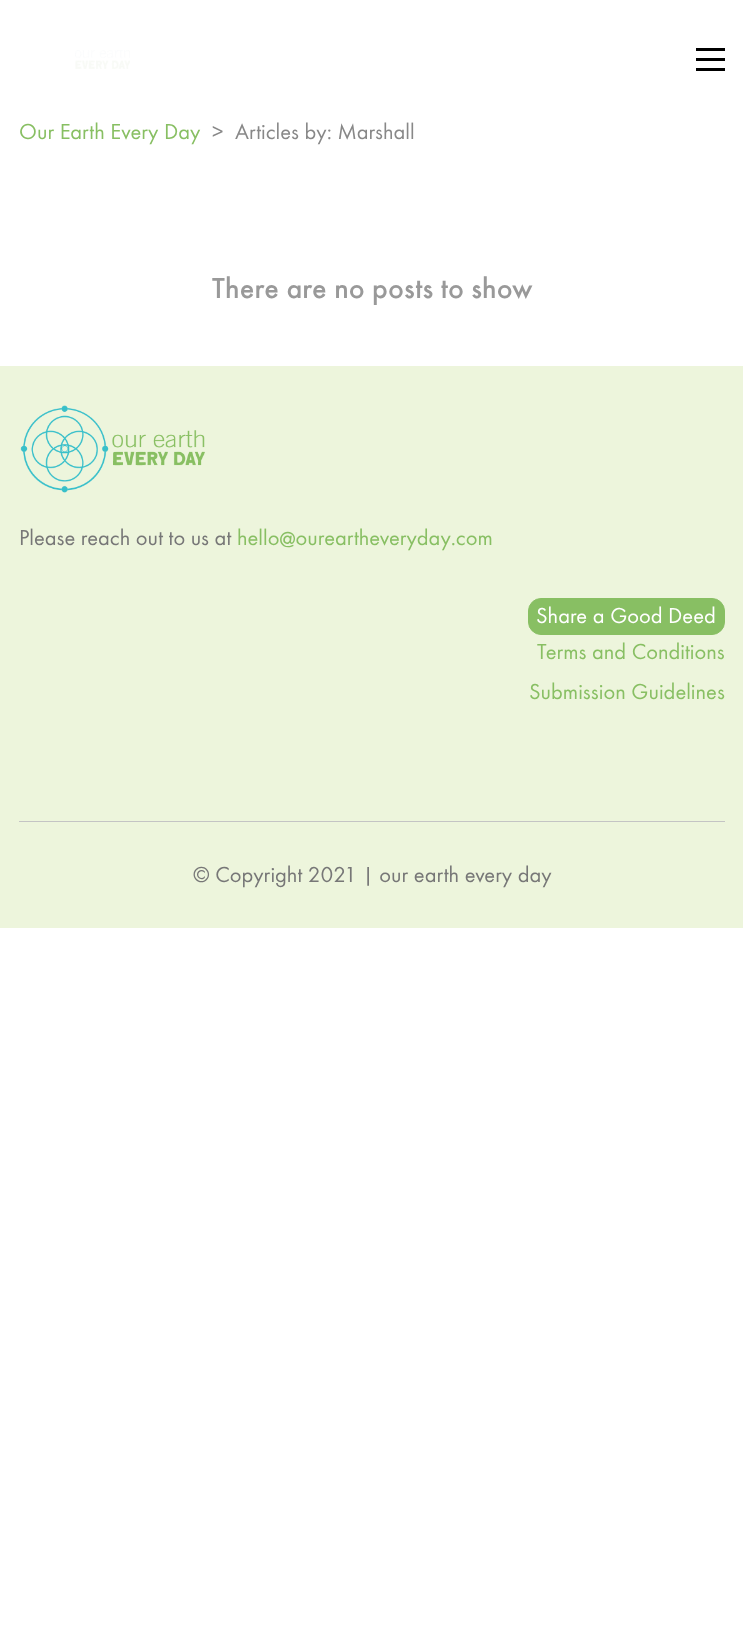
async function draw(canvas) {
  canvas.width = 743;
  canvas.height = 1646;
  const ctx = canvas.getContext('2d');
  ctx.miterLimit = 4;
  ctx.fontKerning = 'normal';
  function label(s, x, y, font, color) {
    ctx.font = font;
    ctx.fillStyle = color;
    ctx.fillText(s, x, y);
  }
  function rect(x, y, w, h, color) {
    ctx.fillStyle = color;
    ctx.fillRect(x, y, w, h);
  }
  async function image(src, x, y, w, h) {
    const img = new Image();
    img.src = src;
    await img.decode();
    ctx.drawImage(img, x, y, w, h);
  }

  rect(0, 0, 743, 1646, '#fff');
  await image('assets/img1.png', 75, 50, 55, 19);
  rect(696, 48, 29, 3, '#000');
  rect(696, 58, 29, 3, '#000');
  rect(696, 68, 29, 3, '#000');
  label('Our Earth Every Day', 19, 139, '22.5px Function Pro', '#88bf63');
  label('>', 212, 139, '22.5px Function Pro', '#888');
  label('Articles by: Marshall', 235, 139, '22.5px Function Pro', '#888');
  label('There are no posts to show', 212, 298, '500 30px Function Pro', '#999');
  rect(0, 366, 743, 562, '#edf5dc');
  await image('assets/img2.png', 20, 405, 185, 88);
  label('Please reach out to us at', 19, 545, '22.5px Function Pro', '#777');
  label('hello@oureartheveryday.com', 237, 545, '22.5px Function Pro', '#88bf63');
  ctx.beginPath();
  ctx.roundRect(528.5, 598.5, 196, 36, 12.5);
  ctx.fill();
  ctx.strokeStyle = '#88bf63';
  ctx.stroke();
  label('Share a Good Deed', 536, 623, '22.5px Function Pro', '#fff');
  label('Terms and Conditions', 537, 659, '22.5px Function Pro', '#88bf63');
  label('Submission Guidelines', 529, 699, '22.5px Function Pro', '#88bf63');
  rect(19, 821, 706, 1, '#c4c4c4');
  label('© Copyright 2021 | our earth every day', 193, 882, '22.5px Function Pro', '#777');
}

draw(document.querySelector('canvas'));
